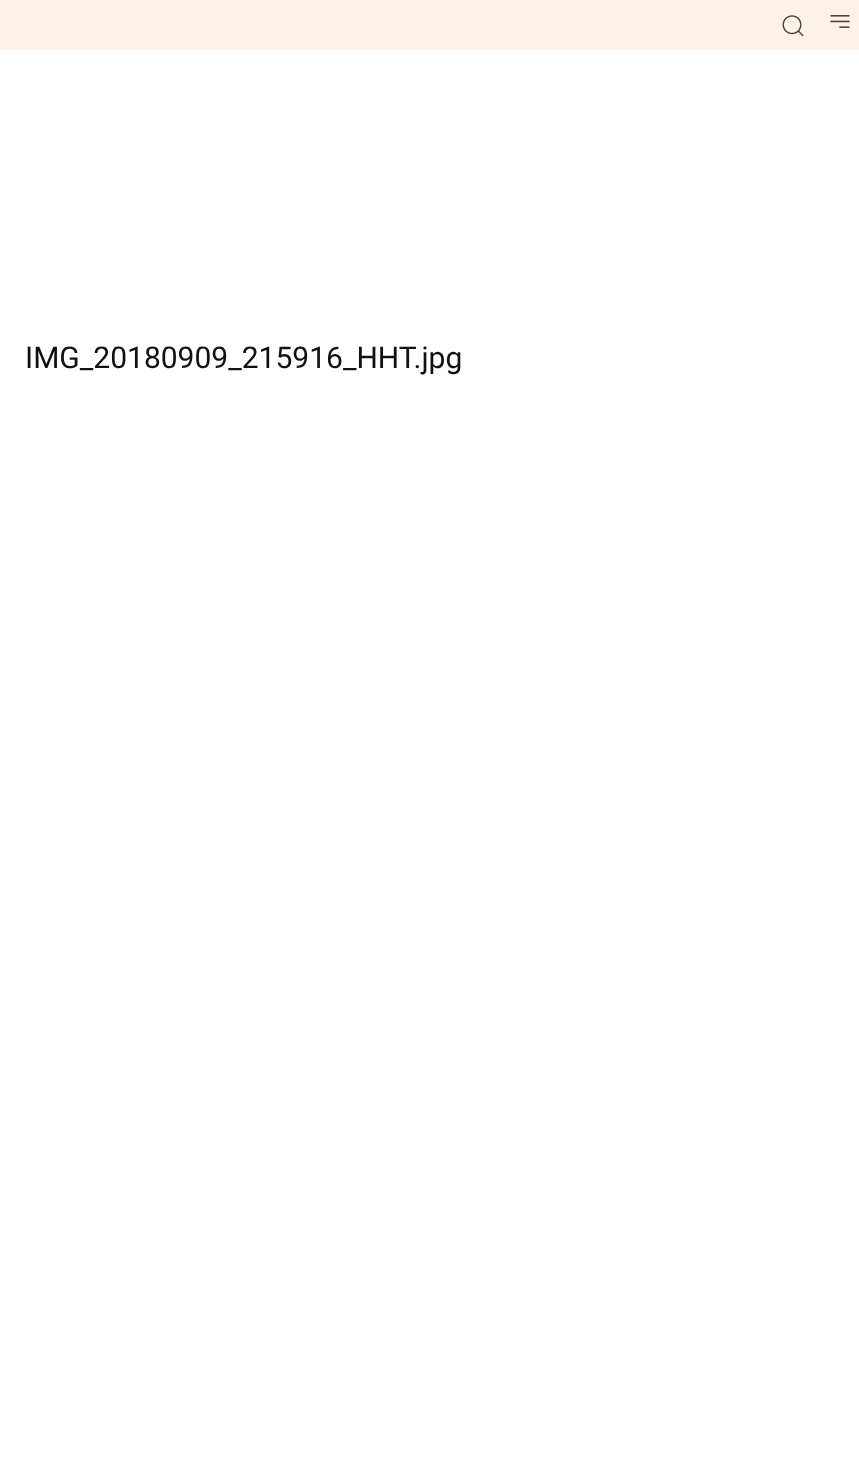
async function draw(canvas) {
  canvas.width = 859;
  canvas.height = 1476;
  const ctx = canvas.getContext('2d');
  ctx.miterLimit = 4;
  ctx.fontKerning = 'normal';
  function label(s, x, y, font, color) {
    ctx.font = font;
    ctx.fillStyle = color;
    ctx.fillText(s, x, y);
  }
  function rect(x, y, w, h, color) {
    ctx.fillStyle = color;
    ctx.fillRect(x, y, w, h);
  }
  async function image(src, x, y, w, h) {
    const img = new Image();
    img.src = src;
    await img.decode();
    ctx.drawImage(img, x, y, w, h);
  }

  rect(0, 0, 859, 1476, '#fff');
  rect(0, 0, 859, 50, '#fcf2ea');
  await image('assets/img1.png', 782, 15, 22, 22);
  await image('assets/img2.png', 830, 15, 20, 13);
  label('IMG_20180909_215916_HHT.jpg', 25, 368, '30px Roboto', '#111');
}

draw(document.querySelector('canvas'));
